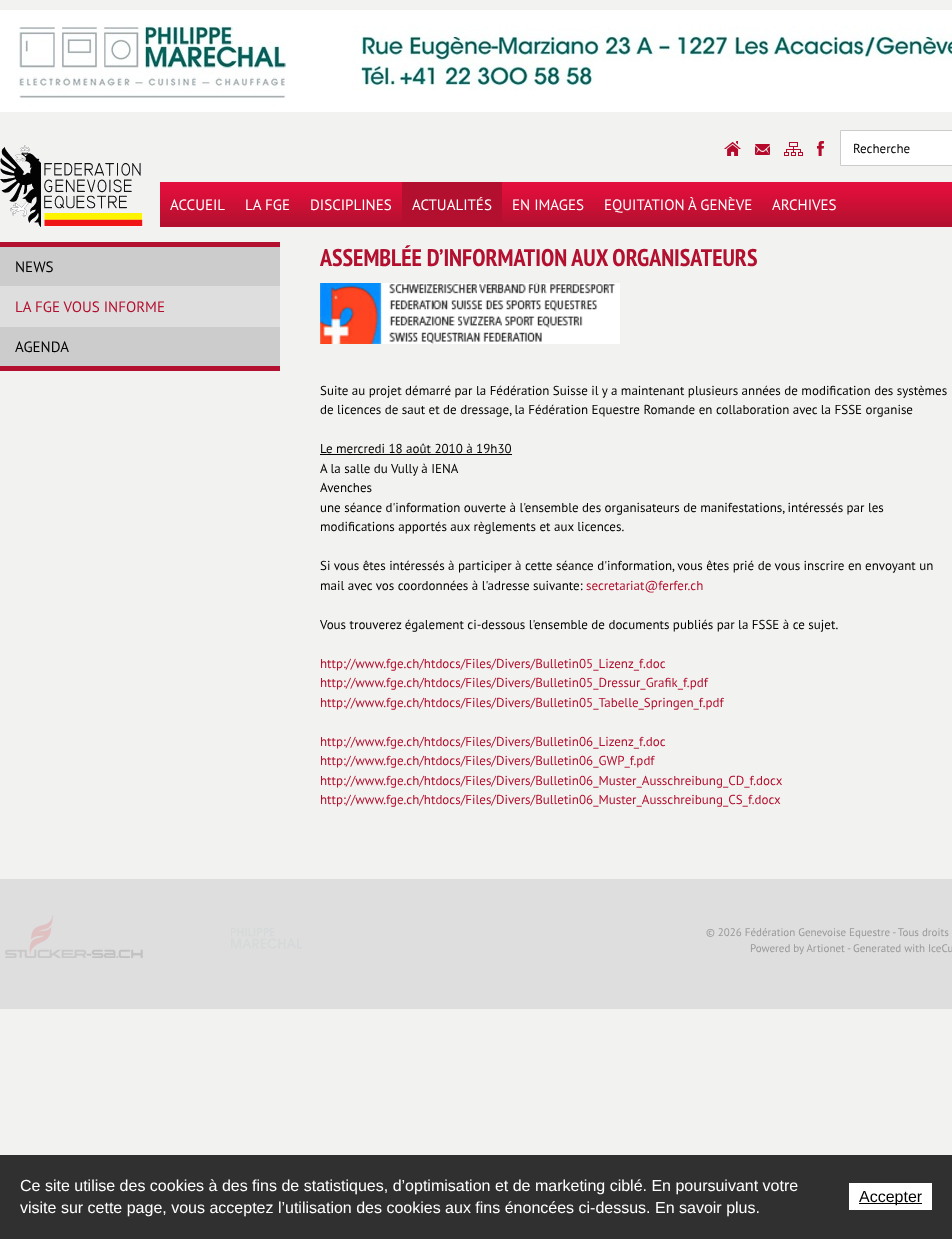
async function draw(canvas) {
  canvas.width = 952;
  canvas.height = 1239;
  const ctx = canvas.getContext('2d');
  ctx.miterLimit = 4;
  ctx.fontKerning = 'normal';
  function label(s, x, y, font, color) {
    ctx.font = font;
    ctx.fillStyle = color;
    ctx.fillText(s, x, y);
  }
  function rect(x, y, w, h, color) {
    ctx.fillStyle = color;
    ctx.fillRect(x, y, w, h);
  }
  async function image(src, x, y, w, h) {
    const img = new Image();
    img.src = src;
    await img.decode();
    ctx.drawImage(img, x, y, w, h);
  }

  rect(0, 0, 952, 1239, '#f2f2f0');
  await image('assets/img1.png', 0, 10, 952, 102);
  await image('assets/img2.png', 0, 145, 143, 82);
  await image('assets/img3.png', 724, 141, 17, 15);
  await image('assets/img4.png', 755, 144, 15, 11);
  await image('assets/img5.png', 784, 142, 19, 14);
  await image('assets/img6.png', 817, 141, 7, 15);
  ctx.fillStyle = '#fff';
  ctx.beginPath();
  ctx.rect(840.5, 130.5, 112, 35);
  ctx.fill();
  ctx.strokeStyle = '#ccc';
  ctx.stroke();
  label('Recherche', 853, 153, '13px PT Sans', '#000');
  rect(160, 222, 792, 5, '#b3102f');
  await image('assets/img7.png', 160, 182, 792, 40);
  label('ACCUEIL', 170, 210, '15px PT Sans', '#fff');
  label('LA FGE', 245, 210, '15px PT Sans', '#fff');
  label('DISCIPLINES', 310, 210, '15px PT Sans', '#fff');
  rect(402, 182, 100, 40, '#b3102f');
  label('ACTUALITÉS', 412, 210, '15px PT Sans', '#fff');
  label('EN IMAGES', 512, 210, '15px PT Sans', '#fff');
  label('EQUITATION À GENÈVE', 604, 210, '15px PT Sans', '#fff');
  label('ARCHIVES', 772, 210, '15px PT Sans', '#fff');
  rect(0, 242, 280, 5, '#b3102f');
  rect(0, 366, 280, 5, '#b3102f');
  rect(0, 247, 280, 39, '#ccc');
  rect(0, 286, 280, 41, '#dedede');
  label('NEWS', 15, 272, '15px PT Sans', '#000');
  label('LA FGE VOUS INFORME', 15, 312, '15px PT Sans', '#b3102f');
  rect(0, 327, 280, 39, '#ccc');
  label('AGENDA', 15, 352, '15px PT Sans', '#000');
  label('ASSEMBLÉE D’INFORMATION AUX ORGANISATEURS', 320, 266, 'bold 24px PT Sans Narrow', '#b3102f');
  await image('assets/img8.png', 320, 283, 300, 61);
  label('Suite au projet démarré par la Fédération Suisse il y a maintenant plusieurs années de modification des systèmes', 320, 395, '13px PT Sans', '#000');
  label('de licences de saut et de dressage, la Fédération Equestre Romande en collaboration avec la FSSE organise', 320, 414, '13px PT Sans', '#000');
  label('Le mercredi 18 août 2010 à 19h30', 320, 453, '13px PT Sans', '#000');
  rect(320, 454, 192, 1, '#000');
  label('A la salle du Vully à IENA', 320, 473, '13px PT Sans', '#000');
  label('Avenches', 320, 492, '13px PT Sans', '#000');
  label('une séance d\'information ouverte à l\'ensemble des organisateurs de manifestations, intéressés par les', 320, 512, '13px PT Sans', '#000');
  label('modifications apportés aux règlements et aux licences.', 320, 531, '13px PT Sans', '#000');
  label('Si vous êtes intéressés à participer à cette séance d\'information, vous êtes prié de vous inscrire en envoyant un', 320, 570, '13px PT Sans', '#000');
  label('mail avec vos coordonnées à l\'adresse suivante:', 320, 590, '13px PT Sans', '#000');
  label('secretariat@ferfer.ch', 586, 590, '13px PT Sans', '#b3102f');
  label('Vous trouverez également ci-dessous l\'ensemble de documents publiés par la FSSE à ce sujet.', 320, 629, '13px PT Sans', '#000');
  label('http://www.fge.ch/htdocs/Files/Divers/Bulletin05_Lizenz_f.doc', 320, 668, '13px PT Sans', '#b3102f');
  label('http://www.fge.ch/htdocs/Files/Divers/Bulletin05_Dressur_Grafik_f.pdf', 320, 687, '13px PT Sans', '#b3102f');
  label('http://www.fge.ch/htdocs/Files/Divers/Bulletin05_Tabelle_Springen_f.pdf', 320, 707, '13px PT Sans', '#b3102f');
  label('http://www.fge.ch/htdocs/Files/Divers/Bulletin06_Lizenz_f.doc', 320, 746, '13px PT Sans', '#b3102f');
  label('http://www.fge.ch/htdocs/Files/Divers/Bulletin06_GWP_f.pdf', 320, 765, '13px PT Sans', '#b3102f');
  label('http://www.fge.ch/htdocs/Files/Divers/Bulletin06_Muster_Ausschreibung_CD_f.docx', 320, 785, '13px PT Sans', '#b3102f');
  label('http://www.fge.ch/htdocs/Files/Divers/Bulletin06_Muster_Ausschreibung_CS_f.docx', 320, 804, '13px PT Sans', '#b3102f');
  rect(0, 879, 952, 130, '#dedede');
  await image('assets/img9.png', 5, 915, 138, 43);
  await image('assets/img10.png', 231, 928, 71, 21);
  label('© 2026 Fédération Genevoise Equestre - Tous droits', 706, 936, '11px PT Sans', '#999');
  label('Powered by Artionet', 750, 952, '11px PT Sans', '#999');
  label('- Generated with IceCu', 847, 952, '11px PT Sans', '#999');
  rect(0, 1155, 952, 84, '#303030');
  label('Ce site utilise des cookies à des fins de statistiques, d’optimisation et de marketing ciblé. En poursuivant votre', 20, 1191, '16px Liberation Sans', '#fff');
  label('visite sur cette page, vous acceptez l’utilisation des cookies aux fins énoncées ci-dessus. En savoir plus.', 20, 1213, '16px Liberation Sans', '#fff');
  rect(849, 1183, 83, 27, '#fff');
  rect(859, 1203, 63, 1, '#000');
  label('Accepter', 859, 1202, '16px Liberation Sans', '#000');
}

draw(document.querySelector('canvas'));
